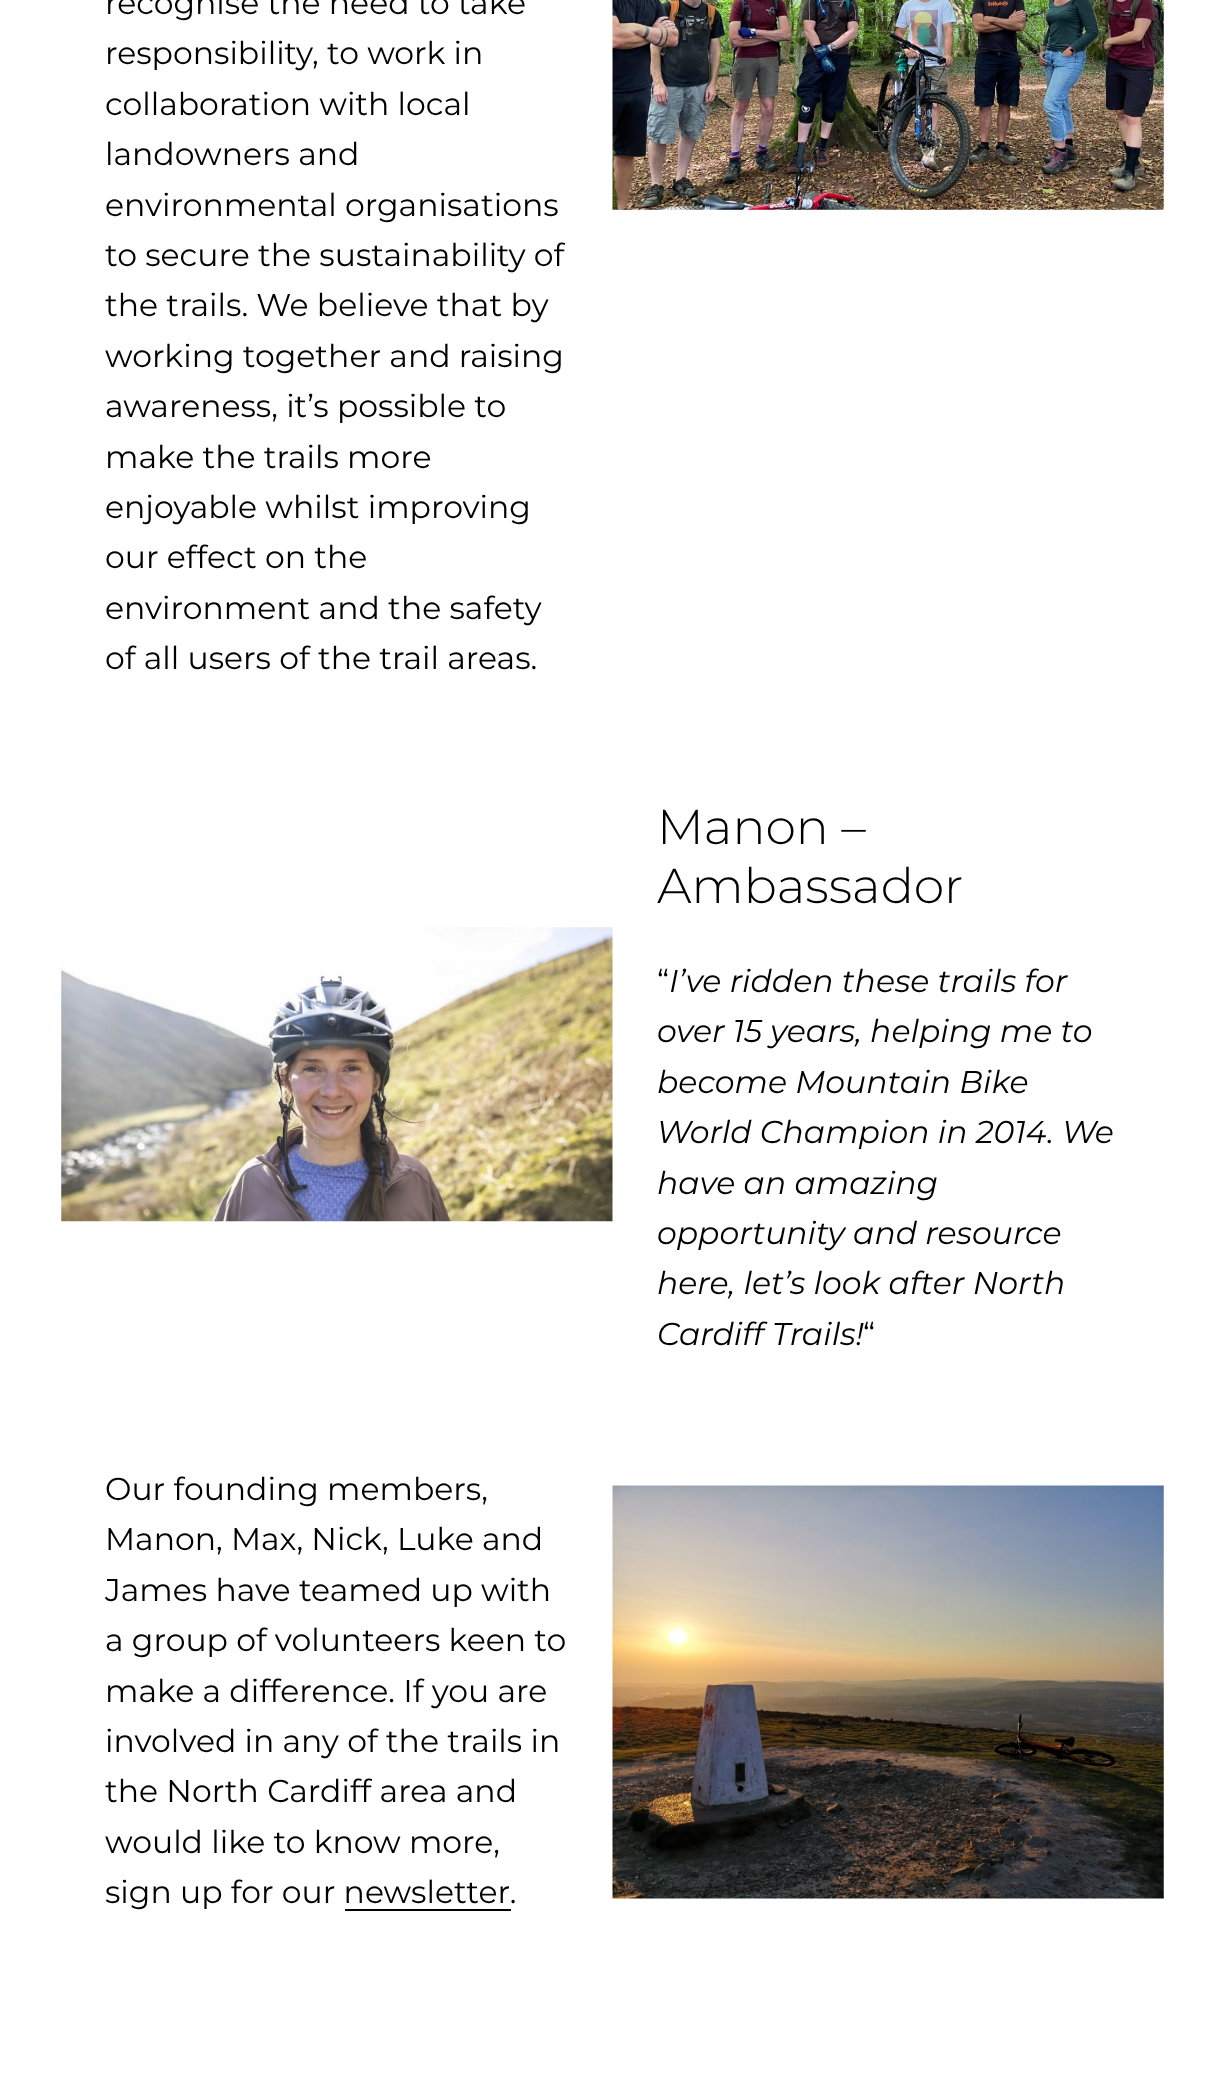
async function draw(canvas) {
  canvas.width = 1225;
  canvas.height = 2098;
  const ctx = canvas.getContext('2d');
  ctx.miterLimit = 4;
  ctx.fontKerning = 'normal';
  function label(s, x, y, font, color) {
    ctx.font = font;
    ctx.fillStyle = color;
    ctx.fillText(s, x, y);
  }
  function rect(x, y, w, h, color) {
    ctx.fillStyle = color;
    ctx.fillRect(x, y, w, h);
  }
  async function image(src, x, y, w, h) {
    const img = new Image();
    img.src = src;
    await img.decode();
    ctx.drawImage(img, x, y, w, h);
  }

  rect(0, 0, 1225, 2098, '#fff');
  label('recognise the need to take', 105, 14, '31.5px Montserrat', '#000');
  label('responsibility, to work in', 105, 64, '31.5px Montserrat', '#000');
  label('collaboration with local', 105, 115, '31.5px Montserrat', '#000');
  label('landowners and', 105, 165, '31.5px Montserrat', '#000');
  label('environmental organisations', 105, 216, '31.5px Montserrat', '#000');
  label('to secure the sustainability of', 105, 266, '31.5px Montserrat', '#000');
  label('the trails. We believe that by', 105, 316, '31.5px Montserrat', '#000');
  label('working together and raising', 105, 367, '31.5px Montserrat', '#000');
  label('awareness, it’s possible to', 105, 417, '31.5px Montserrat', '#000');
  label('make the trails more', 105, 468, '31.5px Montserrat', '#000');
  label('enjoyable whilst improving', 105, 518, '31.5px Montserrat', '#000');
  label('our effect on the', 105, 568, '31.5px Montserrat', '#000');
  label('environment and the safety', 105, 619, '31.5px Montserrat', '#000');
  label('of all users of the trail areas.', 105, 669, '31.5px Montserrat', '#000');
  await image('assets/img1.png', 612, 0, 552, 210);
  await image('assets/img2.png', 61, 927, 552, 295);
  label('Manon –', 657, 844, '300 49px Montserrat', '#000');
  label('Ambassador', 657, 903, '300 49px Montserrat', '#000');
  label('“', 657, 992, '31.5px Montserrat', '#000');
  label('I’ve ridden these trails for', 669, 992, 'italic 31.5px Montserrat', '#000');
  label('over 15 years, helping me to', 657, 1042, 'italic 31.5px Montserrat', '#000');
  label('become Mountain Bike', 657, 1093, 'italic 31.5px Montserrat', '#000');
  label('World Champion in 2014. We', 657, 1143, 'italic 31.5px Montserrat', '#000');
  label('have an amazing', 657, 1194, 'italic 31.5px Montserrat', '#000');
  label('opportunity and resource', 657, 1244, 'italic 31.5px Montserrat', '#000');
  label('here, let’s look after North', 657, 1294, 'italic 31.5px Montserrat', '#000');
  label('Cardiff Trails!', 657, 1345, 'italic 31.5px Montserrat', '#000');
  label('“', 863, 1345, '31.5px Montserrat', '#000');
  label('Our founding members,', 105, 1500, '31.5px Montserrat', '#000');
  label('Manon, Max, Nick, Luke and', 105, 1550, '31.5px Montserrat', '#000');
  label('James have teamed up with', 105, 1601, '31.5px Montserrat', '#000');
  label('a group of volunteers keen to', 105, 1651, '31.5px Montserrat', '#000');
  label('make a difference. If you are', 105, 1702, '31.5px Montserrat', '#000');
  label('involved in any of the trails in', 105, 1752, '31.5px Montserrat', '#000');
  label('the North Cardiff area and', 105, 1802, '31.5px Montserrat', '#000');
  label('would like to know more,', 105, 1853, '31.5px Montserrat', '#000');
  label('sign up for our newsletter.', 105, 1903, '31.5px Montserrat', '#000');
  rect(345, 1909, 166, 2, '#000');
  await image('assets/img3.png', 612, 1485, 552, 414);
}

draw(document.querySelector('canvas'));
